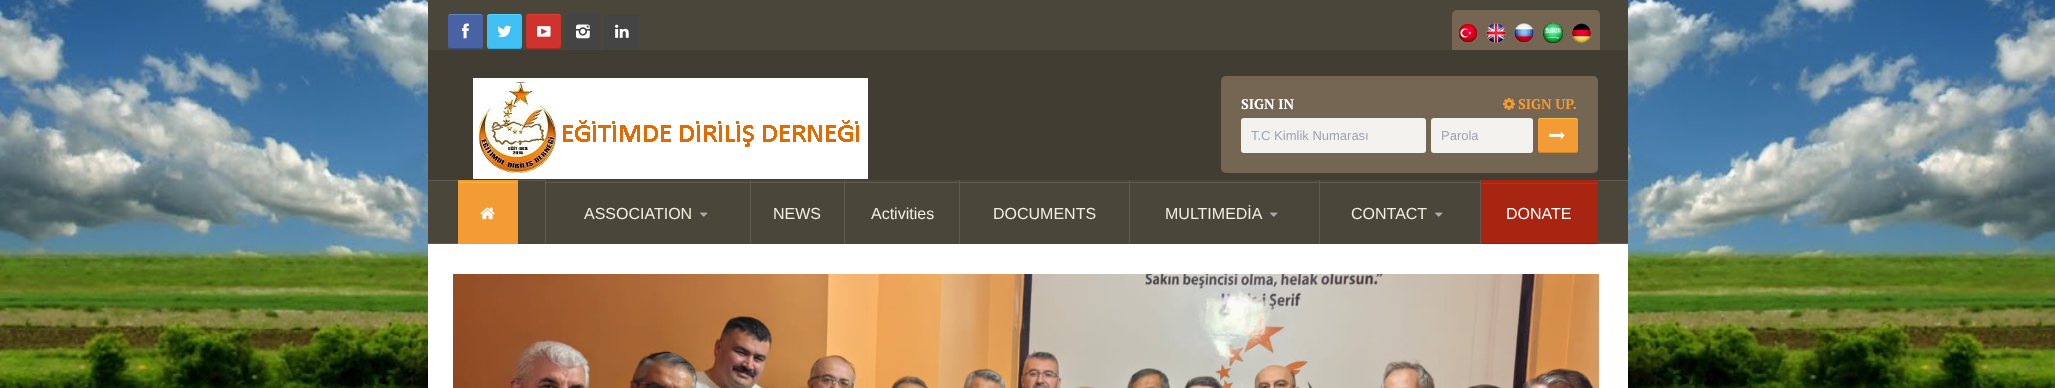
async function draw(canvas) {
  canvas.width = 2055;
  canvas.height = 388;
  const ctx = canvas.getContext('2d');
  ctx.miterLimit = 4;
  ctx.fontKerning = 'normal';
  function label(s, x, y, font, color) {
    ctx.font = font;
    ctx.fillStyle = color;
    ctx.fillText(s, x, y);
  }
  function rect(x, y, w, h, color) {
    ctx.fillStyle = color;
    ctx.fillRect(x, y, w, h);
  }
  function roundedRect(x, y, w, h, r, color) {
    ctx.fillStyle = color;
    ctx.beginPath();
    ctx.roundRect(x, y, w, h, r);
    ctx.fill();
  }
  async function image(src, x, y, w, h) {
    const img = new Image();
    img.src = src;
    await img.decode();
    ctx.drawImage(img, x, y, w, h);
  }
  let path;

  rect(0, 0, 2055, 388, '#fff');
  await image('assets/img1.png', 0, 0, 2055, 388);
  rect(428, 0, 1200, 50, '#4b463a');
  roundedRect(448, 14, 35, 35, 3, '#4862a3');
  ctx.fillStyle = '#5e80bf';
  path = new Path2D('M451 14C449.5 14 448 15.5 448 17C448 16 449.5 15 451 15H480C481.5 15 483 16 483 17C483 15.5 481.5 14 480 14Z');
  ctx.fill(path);
  ctx.fillStyle = '#3a4e82';
  path = new Path2D('M480 49C481.5 49 483 47.5 483 46C483 47 481.5 48 480 48H451C449.5 48 448 47 448 46C448 47.5 449.5 49 451 49Z');
  ctx.fill(path);
  await image('assets/img2.png', 462, 23, 7, 16);
  roundedRect(487, 14, 35, 35, 3, '#40bff5');
  ctx.fillStyle = '#53d2f8';
  path = new Path2D('M490 14C488.5 14 487 15.5 487 17C487 16 488.5 15 490 15H519C520.5 15 522 16 522 17C522 15.5 520.5 14 519 14Z');
  ctx.fill(path);
  ctx.fillStyle = '#36a6d6';
  path = new Path2D('M519 49C520.5 49 522 47.5 522 46C522 47 520.5 48 519 48H490C488.5 48 487 47 487 46C487 47.5 488.5 49 490 49Z');
  ctx.fill(path);
  await image('assets/img3.png', 497, 25, 15, 13);
  roundedRect(526, 14, 35, 35, 3, '#cd322c');
  ctx.fillStyle = '#dc4139';
  path = new Path2D('M529 14C527.5 14 526 15.5 526 17C526 16 527.5 15 529 15H558C559.5 15 561 16 561 17C561 15.5 559.5 14 558 14Z');
  ctx.fill(path);
  ctx.fillStyle = '#ac2823';
  path = new Path2D('M558 49C559.5 49 561 47.5 561 46C561 47 559.5 48 558 48H529C527.5 48 526 47 526 46C526 47.5 527.5 49 529 49Z');
  ctx.fill(path);
  await image('assets/img4.png', 537, 26, 14, 11);
  roundedRect(565, 14, 35, 35, 3, '#444');
  rect(598, 14, 1, 1, '#444');
  rect(598, 48, 1, 1, '#444');
  await image('assets/img5.png', 576, 24, 14, 15);
  roundedRect(604, 15, 35, 35, 3, '#444');
  await image('assets/img6.png', 615, 24, 14, 14);
  roundedRect(1452, 10, 148, 66, 5, '#756653');
  await image('assets/img7.png', 1458, 23, 20, 20);
  await image('assets/img8.png', 1486, 23, 20, 20);
  await image('assets/img9.png', 1514, 23, 20, 20);
  await image('assets/img10.png', 1543, 23, 20, 20);
  await image('assets/img11.png', 1571, 23, 21, 20);
  rect(428, 50, 1200, 130, '#423d32');
  await image('assets/img12.png', 473, 78, 395, 101);
  roundedRect(1221, 76, 377, 97, 5, '#756653');
  label('SIGN IN', 1241, 109, 'bold 14px PT Serif', '#fff');
  await image('assets/img13.png', 1503, 98, 12, 12);
  label('SIGN UP.', 1518, 109, 'bold 14px PT Serif', '#f39c35');
  roundedRect(1241, 118, 185, 35, 3, '#f3f2ef');
  label('T.C Kimlik Numarası', 1251, 140, '13px Liberation Sans', '#9ba4b6');
  roundedRect(1431, 118, 102, 35, 3, '#f3f2ef');
  label('Parola', 1441, 140, '13px Liberation Sans', '#9ba4b6');
  roundedRect(1538, 118, 40, 35, 3, '#f39c35');
  ctx.fillStyle = '#f8c24a';
  path = new Path2D('M1541 118C1539 118 1538 119 1538 121C1538 120 1539 119 1541 119H1575C1577 119 1578 120 1578 121C1578 119 1577 118 1575 118Z');
  ctx.fill(path);
  ctx.fillStyle = '#d28529';
  path = new Path2D('M1575 153C1577 153 1578 152 1578 150C1578 151 1577 152 1575 152H1541C1539 152 1538 151 1538 150C1538 152 1539 153 1541 153Z');
  ctx.fill(path);
  await image('assets/img14.png', 1549, 131, 16, 9);
  rect(428, 181, 1200, 62, '#4b463a');
  rect(428, 180, 1200, 1, '#5f5a4f');
  rect(428, 243, 1200, 1, '#5f5a4f');
  rect(458, 180, 60, 64, '#f39c35');
  rect(459, 182, 58, 1, '#f6b542');
  await image('assets/img15.png', 480, 207, 15, 13);
  rect(518, 243, 27, 1, '#4b463a');
  rect(545, 180, 1, 64, '#5f5a4f');
  rect(546, 180, 204, 64, '#4b463a');
  rect(750, 180, 1, 64, '#5f5a4f');
  rect(546, 182, 204, 1, '#5f5a4f');
  label('ASSOCIATION', 584, 219, '16px Liberation Sans', '#f2eddf');
  await image('assets/img16.png', 700, 212, 8, 5);
  rect(751, 180, 93, 64, '#4b463a');
  rect(844, 180, 1, 64, '#5f5a4f');
  rect(751, 182, 93, 1, '#5f5a4f');
  label('NEWS', 773, 219, '16px Liberation Sans', '#f2eddf');
  rect(845, 180, 114, 64, '#4b463a');
  rect(959, 180, 1, 64, '#5f5a4f');
  rect(845, 182, 114, 1, '#5f5a4f');
  label('Activities', 871, 219, '16px Liberation Sans', '#f2eddf');
  rect(960, 180, 169, 64, '#4b463a');
  rect(1129, 180, 1, 64, '#5f5a4f');
  rect(960, 182, 169, 1, '#5f5a4f');
  label('DOCUMENTS', 993, 219, '16px Liberation Sans', '#f2eddf');
  rect(1130, 180, 189, 64, '#4b463a');
  rect(1319, 180, 1, 64, '#5f5a4f');
  rect(1130, 182, 189, 1, '#5f5a4f');
  label('MULTIMEDİA', 1165, 219, '16px Liberation Sans', '#f2eddf');
  await image('assets/img16.png', 1270, 212, 8, 5);
  rect(1320, 180, 160, 64, '#4b463a');
  rect(1480, 180, 1, 64, '#5f5a4f');
  rect(1320, 182, 160, 1, '#5f5a4f');
  label('CONTACT', 1351, 219, '16px Liberation Sans', '#f2eddf');
  await image('assets/img16.png', 1435, 212, 8, 5);
  rect(1481, 180, 117, 63, '#a82512');
  rect(1481, 183, 117, 1, '#be2e17');
  rect(1481, 243, 117, 1, '#911f0f');
  label('DONATE', 1506, 219, '16px Liberation Sans', '#fff');
  rect(428, 244, 1200, 144, '#fff');
  await image('assets/img17.png', 453, 274, 1146, 114);
}

draw(document.querySelector('canvas'));
